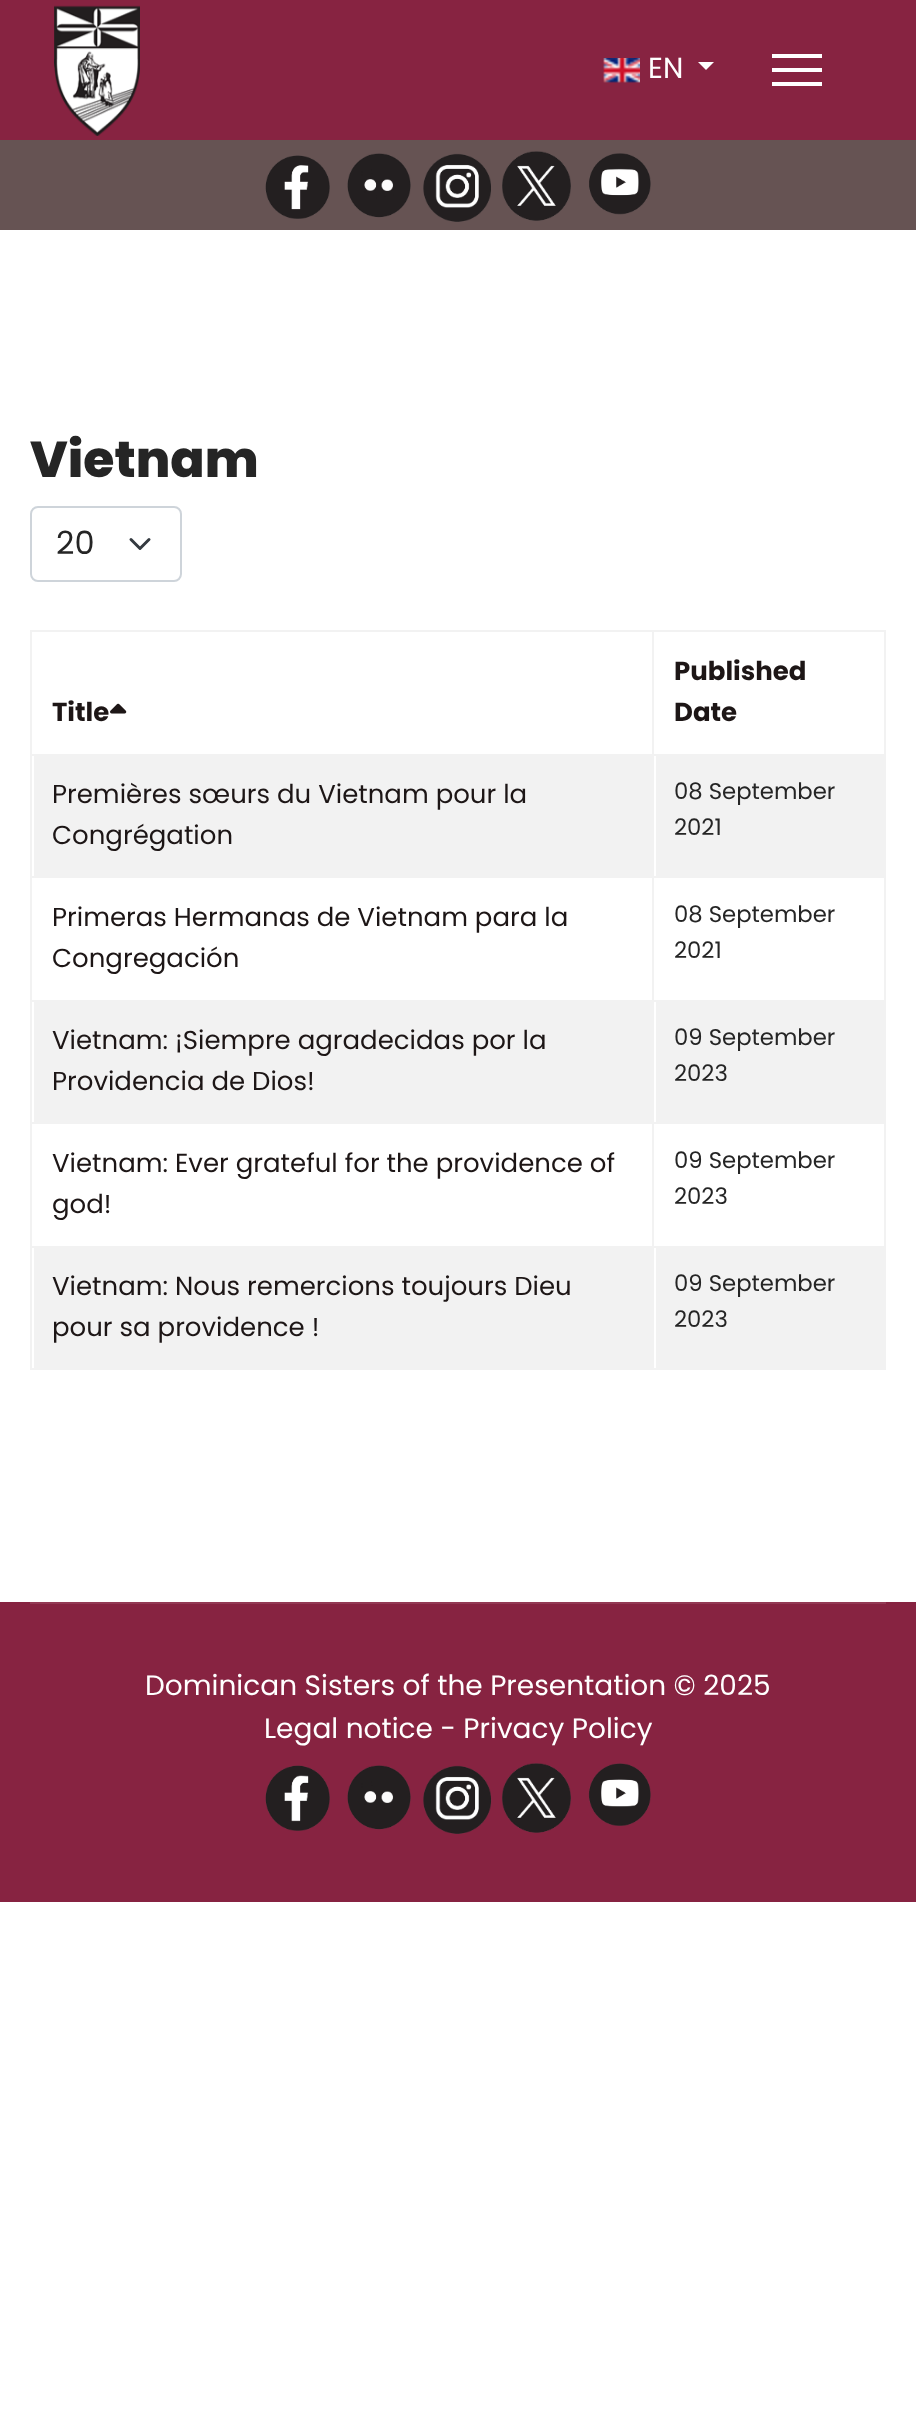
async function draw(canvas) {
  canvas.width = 916;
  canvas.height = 2424;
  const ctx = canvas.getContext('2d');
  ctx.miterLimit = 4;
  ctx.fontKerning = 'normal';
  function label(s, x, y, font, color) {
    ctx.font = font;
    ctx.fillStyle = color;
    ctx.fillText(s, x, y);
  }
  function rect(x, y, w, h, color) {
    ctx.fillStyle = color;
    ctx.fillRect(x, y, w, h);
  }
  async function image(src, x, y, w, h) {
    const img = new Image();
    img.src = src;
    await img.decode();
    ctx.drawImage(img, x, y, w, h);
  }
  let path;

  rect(0, 0, 916, 2424, '#fff');
  rect(0, 0, 916, 140, '#872341');
  await image('assets/img1.png', 54, 5, 86, 131);
  await image('assets/img2.png', 603, 58, 37, 25);
  label('EN', 648, 78, '29px Poppins', '#fff');
  path = new Path2D('M698 62H714L706 70Z');
  ctx.fill(path);
  rect(772, 54, 50, 4, '#fff');
  rect(772, 68, 50, 4, '#fff');
  rect(772, 82, 50, 4, '#fff');
  rect(0, 140, 916, 90, '#665353');
  await image('assets/img3.png', 265, 155, 65, 64);
  await image('assets/img4.png', 347, 153, 64, 65);
  await image('assets/img5.png', 423, 153, 68, 69);
  await image('assets/img6.png', 502, 151, 69, 70);
  await image('assets/img7.png', 589, 153, 62, 62);
  label('Vietnam', 30, 477, '800 50.5px Poppins', '#252525');
  path = new Path2D('M131 539.5L140 548.5L149 539.5');
  ctx.strokeStyle = '#343a40';
  ctx.lineWidth = 3;
  ctx.lineCap = 'round';
  ctx.lineJoin = 'round';
  ctx.stroke(path);
  ctx.beginPath();
  ctx.roundRect(31, 507, 150, 74, 7);
  ctx.strokeStyle = '#ced4da';
  ctx.lineWidth = 2;
  ctx.lineJoin = 'miter';
  ctx.stroke();
  label('20', 56, 554, '32px Poppins', '#252525');
  rect(30, 630, 856, 2, '#f2f2f2');
  rect(30, 754, 856, 2, '#f2f2f2');
  rect(30, 876, 856, 2, '#f2f2f2');
  rect(30, 1000, 856, 2, '#f2f2f2');
  rect(30, 1122, 856, 2, '#f2f2f2');
  rect(30, 1246, 856, 2, '#f2f2f2');
  rect(884, 1246, 2, 124, '#f2f2f2');
  rect(884, 1122, 2, 126, '#f2f2f2');
  rect(884, 1000, 2, 124, '#f2f2f2');
  rect(884, 876, 2, 126, '#f2f2f2');
  rect(884, 754, 2, 124, '#f2f2f2');
  rect(884, 630, 2, 126, '#f2f2f2');
  rect(30, 1368, 856, 2, '#f2f2f2');
  rect(30, 1246, 2, 124, '#f2f2f2');
  rect(30, 1122, 2, 126, '#f2f2f2');
  rect(30, 1000, 2, 124, '#f2f2f2');
  rect(30, 876, 2, 126, '#f2f2f2');
  rect(30, 754, 2, 124, '#f2f2f2');
  rect(30, 630, 2, 126, '#f2f2f2');
  label('Title', 52, 721, 'bold 26px Poppins', '#1d1616');
  await image('assets/img8.png', 110, 703, 17, 11);
  label('Published', 674, 680, 'bold 26px Poppins', '#1d1616');
  label('Date', 674, 721, 'bold 26px Poppins', '#1d1616');
  rect(34, 756, 618, 120, '#f2f2f2');
  label('Premières sœurs du Vietnam pour la', 52, 803, '26px Poppins', '#1d1616');
  label('Congrégation', 52, 844, '26px Poppins', '#1d1616');
  rect(656, 756, 228, 120, '#f2f2f2');
  label('08 September', 674, 799, '22.75px Poppins', '#252525');
  label('2021', 674, 835, '22.75px Poppins', '#252525');
  label('Primeras Hermanas de Vietnam para la', 52, 926, '26px Poppins', '#1d1616');
  label('Congregación', 52, 967, '26px Poppins', '#1d1616');
  label('08 September', 674, 922, '22.75px Poppins', '#252525');
  label('2021', 674, 958, '22.75px Poppins', '#252525');
  rect(34, 1002, 618, 120, '#f2f2f2');
  label('Vietnam: ¡Siempre agradecidas por la', 52, 1049, '26px Poppins', '#1d1616');
  label('Providencia de Dios!', 52, 1090, '26px Poppins', '#1d1616');
  rect(656, 1002, 228, 120, '#f2f2f2');
  label('09 September', 674, 1045, '22.75px Poppins', '#252525');
  label('2023', 674, 1081, '22.75px Poppins', '#252525');
  label('Vietnam: Ever grateful for the providence of', 52, 1172, '26px Poppins', '#1d1616');
  label('god!', 52, 1213, '26px Poppins', '#1d1616');
  label('09 September', 674, 1168, '22.75px Poppins', '#252525');
  label('2023', 674, 1204, '22.75px Poppins', '#252525');
  rect(34, 1248, 618, 120, '#f2f2f2');
  label('Vietnam: Nous remercions toujours Dieu', 52, 1295, '26px Poppins', '#1d1616');
  label('pour sa providence !', 52, 1336, '26px Poppins', '#1d1616');
  rect(656, 1248, 228, 120, '#f2f2f2');
  rect(652, 630, 2, 740, '#f2f2f2');
  label('09 September', 674, 1291, '22.75px Poppins', '#252525');
  label('2023', 674, 1327, '22.75px Poppins', '#252525');
  rect(0, 1602, 916, 300, '#872341');
  rect(30, 1602, 856, 2, '#933954');
  label('Dominican Sisters of the Presentation © 2025', 145, 1695, '28px Poppins', '#fff');
  label('Legal notice - Privacy Policy', 264, 1738, '28px Poppins', '#fff');
  await image('assets/img9.png', 265, 1765, 65, 66);
  await image('assets/img10.png', 347, 1765, 64, 65);
  await image('assets/img11.png', 423, 1765, 69, 69);
  await image('assets/img12.png', 502, 1763, 69, 70);
  await image('assets/img13.png', 588, 1763, 63, 63);
}

draw(document.querySelector('canvas'));
